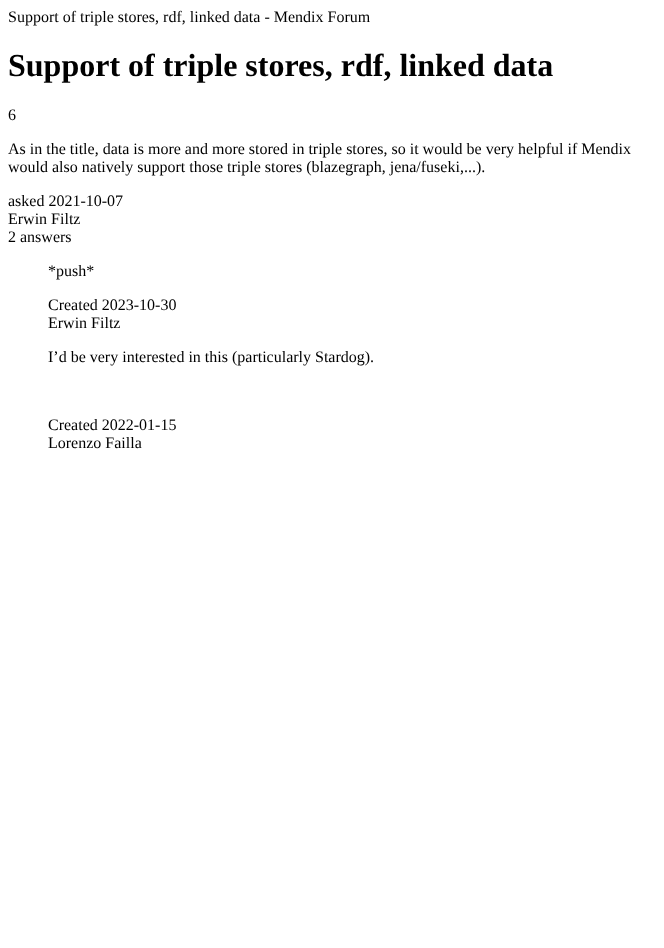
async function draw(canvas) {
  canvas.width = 664;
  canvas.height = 948;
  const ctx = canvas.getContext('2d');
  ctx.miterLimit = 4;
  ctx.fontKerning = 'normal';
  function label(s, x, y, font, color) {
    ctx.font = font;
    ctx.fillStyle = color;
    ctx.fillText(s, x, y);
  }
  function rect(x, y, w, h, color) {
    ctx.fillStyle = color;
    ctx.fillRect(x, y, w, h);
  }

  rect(0, 0, 664, 948, '#fff');
  label('Support of triple stores, rdf, linked data - Mendix Forum', 8, 22, '16px Liberation Serif', '#000');
  label('Support of triple stores, rdf, linked data', 8, 76, 'bold 32px Liberation Serif', '#000');
  label('6', 8, 120, '16px Liberation Serif', '#000');
  label('As in the title, data is more and more stored in triple stores, so it would be very helpful if Mendix', 8, 154, '16px Liberation Serif', '#000');
  label('would also natively support those triple stores (blazegraph, jena/fuseki,...).', 8, 172, '16px Liberation Serif', '#000');
  label('asked 2021-10-07', 8, 206, '16px Liberation Serif', '#000');
  label('Erwin Filtz', 8, 224, '16px Liberation Serif', '#000');
  label('2 answers', 8, 242, '16px Liberation Serif', '#000');
  label('*push*', 48, 276, '16px Liberation Serif', '#000');
  label('Created 2023-10-30', 48, 310, '16px Liberation Serif', '#000');
  label('Erwin Filtz', 48, 328, '16px Liberation Serif', '#000');
  label('I’d be very interested in this (particularly Stardog).', 48, 362, '16px Liberation Serif', '#000');
  label('Created 2022-01-15', 48, 430, '16px Liberation Serif', '#000');
  label('Lorenzo Failla', 48, 448, '16px Liberation Serif', '#000');
}

draw(document.querySelector('canvas'));
